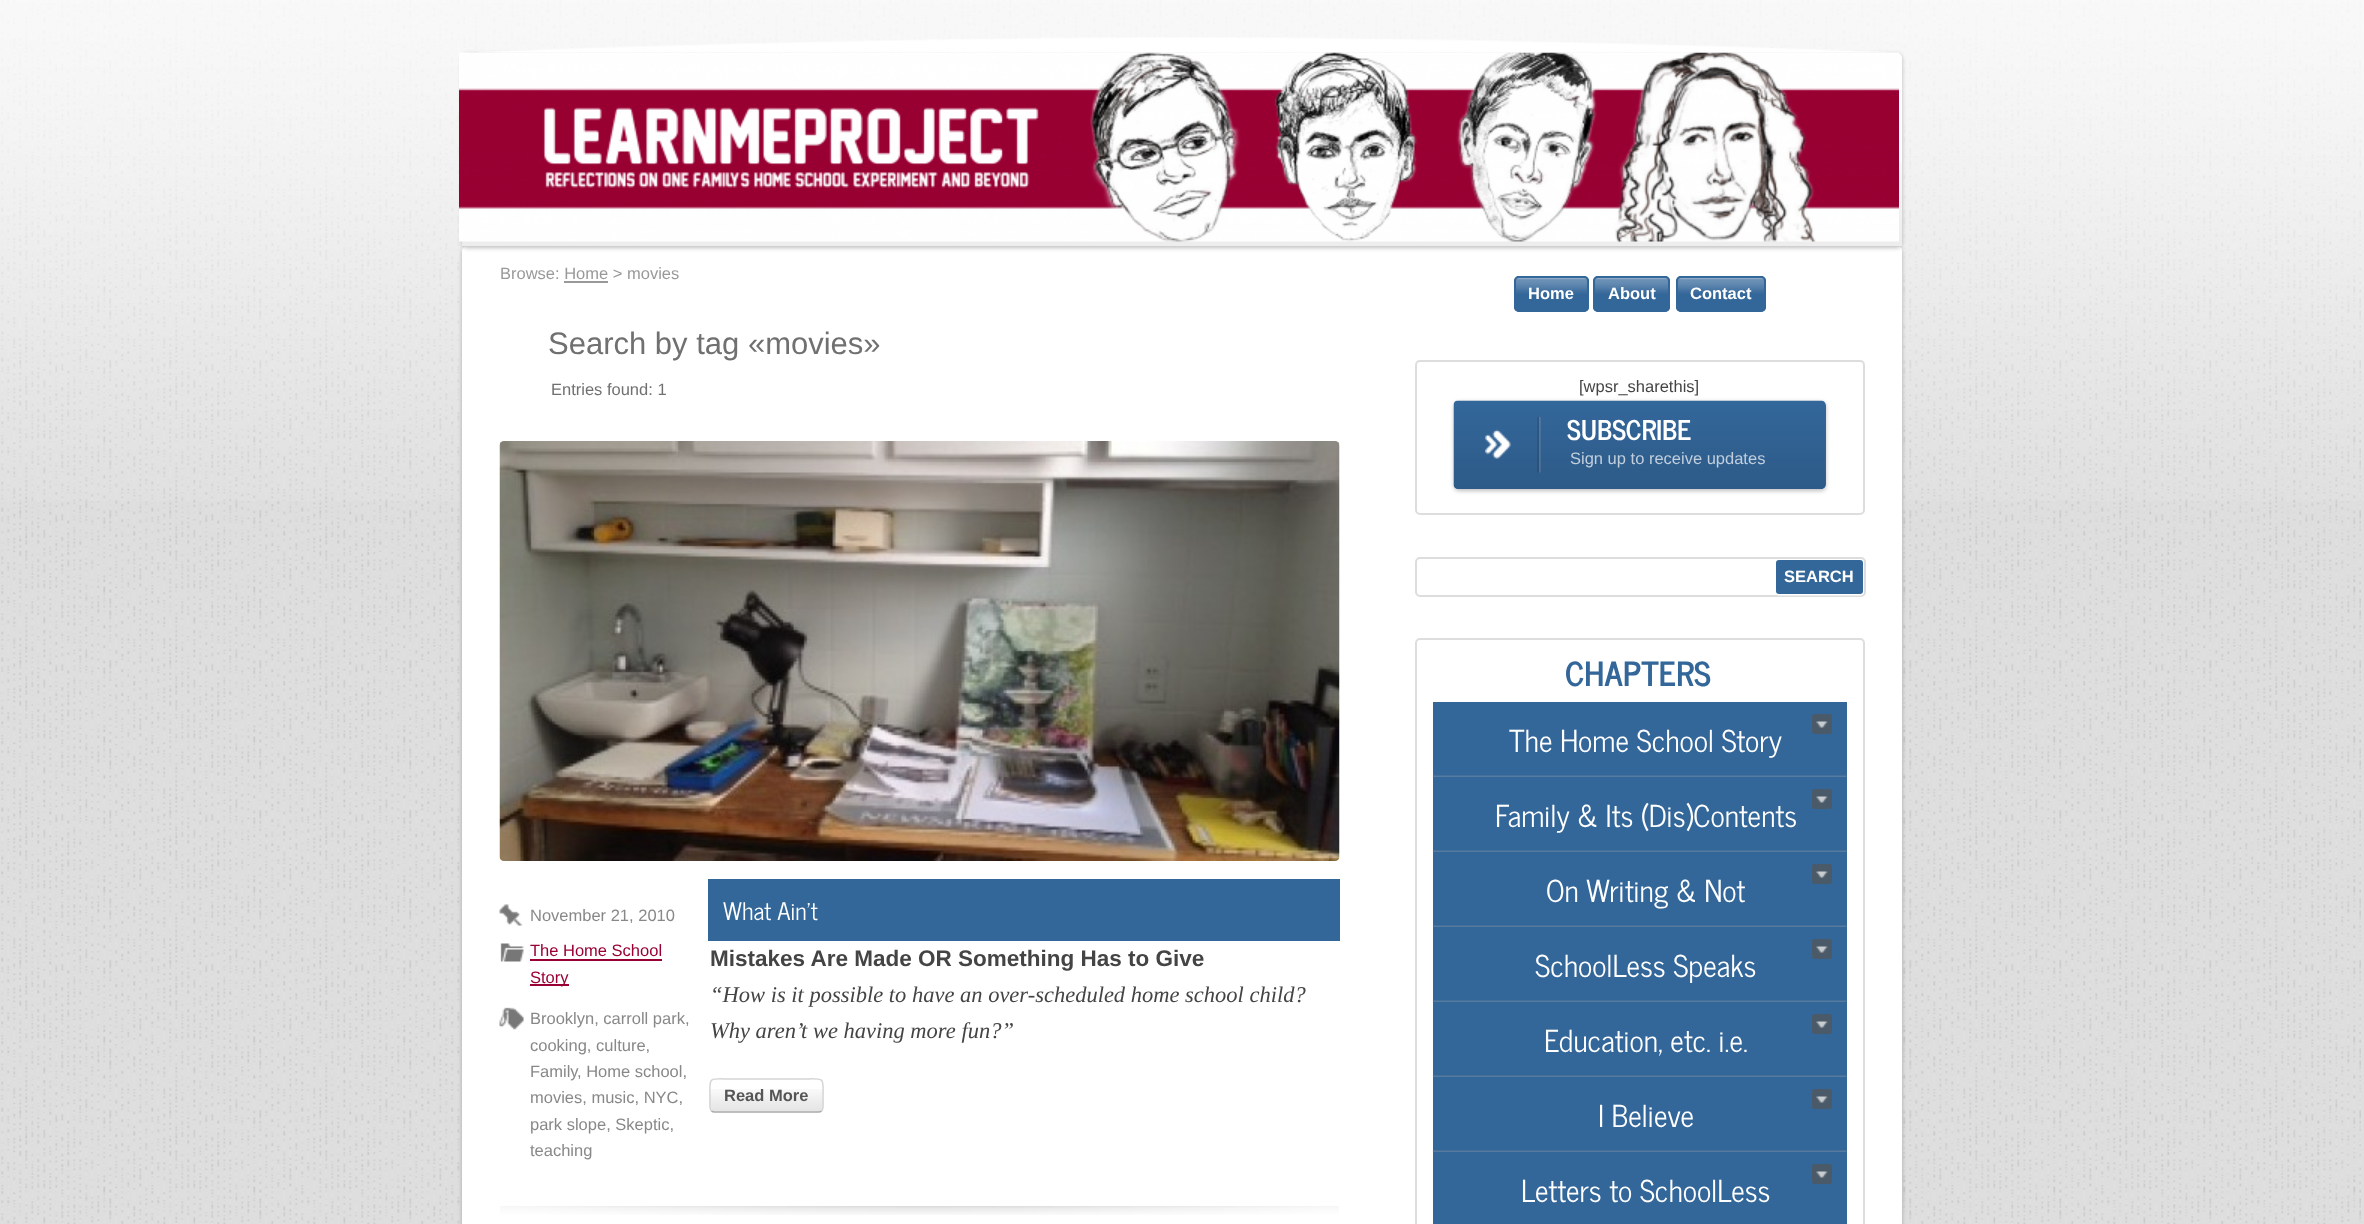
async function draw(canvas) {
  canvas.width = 2364;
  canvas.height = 1224;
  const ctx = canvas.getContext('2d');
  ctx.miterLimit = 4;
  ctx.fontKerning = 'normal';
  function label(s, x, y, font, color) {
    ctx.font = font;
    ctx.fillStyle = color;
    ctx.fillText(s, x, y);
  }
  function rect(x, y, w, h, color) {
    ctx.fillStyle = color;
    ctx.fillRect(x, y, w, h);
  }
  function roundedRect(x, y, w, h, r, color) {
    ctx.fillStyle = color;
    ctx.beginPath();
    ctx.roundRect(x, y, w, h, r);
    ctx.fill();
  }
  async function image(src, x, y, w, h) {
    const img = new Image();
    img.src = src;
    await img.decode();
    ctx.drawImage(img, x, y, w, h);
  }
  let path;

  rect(0, 0, 2364, 1224, '#dedede');
  await image('assets/img1.png', 1, 0, 2360, 1224);
  await image('assets/img2.png', 0, 0, 2364, 501);
  ctx.fillStyle = '#00000040';
  ctx.filter = 'blur(2px)';
  ctx.beginPath();
  ctx.roundRect(462, 248, 1440, 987, 5);
  ctx.fill();
  ctx.filter = 'none';
  ctx.fillStyle = '#fff';
  path = new Path2D('M467 246H1897C1900 246 1902 248 1902 251V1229H462V251C462 248 464 246 467 246Z');
  ctx.fill(path);
  roundedRect(462, 246, 915, 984, 6, '#fff');
  path = new Path2D('M1379 246H1897C1900 246 1902 248 1902 251V1224C1902 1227 1900 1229 1897 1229H1379Z');
  ctx.fill(path);
  ctx.fillStyle = '#00000040';
  ctx.filter = 'blur(2px)';
  ctx.beginPath();
  ctx.roundRect(462, 54, 1440, 194, 5);
  ctx.fill();
  ctx.filter = 'none';
  ctx.fillStyle = '#fff';
  ctx.beginPath();
  ctx.roundRect(462, 53, 1440, 193, [5, 5, 0, 0]);
  ctx.fill();
  await image('assets/img4.png', 462, 162, 1440, 84);
  await image('assets/img5.png', 459, 52, 1440, 190);
  await image('assets/img3.png', 478, 37, 1409, 16);
  label('Browse: Home > movies', 500, 279, '16.5px Liberation Sans', '#999');
  rect(564, 281, 44, 2, '#999');
  label('Search by tag «movies»', 548, 354, '31px Liberation Sans', '#707070');
  label('Entries found: 1', 551, 395, '16.5px Liberation Sans', '#707070');
  await image('assets/img6.png', 500, 1206, 839, 9);
  await image('assets/img7.png', 499, 441, 841, 420);
  await image('assets/img8.png', 499, 904, 24, 22);
  label('November 21, 2010', 530, 921, '16.5px Liberation Sans', '#888');
  await image('assets/img9.png', 500, 943, 24, 19);
  label('The Home School', 530, 956, '16.5px Liberation Sans', '#903');
  rect(530, 959, 132, 2, '#903');
  rect(530, 984, 39, 2, '#903');
  label('Story', 530, 983, '16.5px Liberation Sans', '#903');
  await image('assets/img10.png', 499, 1007, 25, 23);
  label('Brooklyn, carroll park,', 530, 1024, '16.5px Liberation Sans', '#888');
  label('cooking, culture,', 530, 1051, '16.5px Liberation Sans', '#888');
  label('Family', 530, 1077, '16.5px Liberation Sans', '#888');
  label(', Home school,', 577, 1077, '16.5px Liberation Sans', '#888');
  label('movies, music, NYC,', 530, 1103, '16.5px Liberation Sans', '#888');
  label('park slope, Skeptic,', 530, 1130, '16.5px Liberation Sans', '#888');
  label('teaching', 530, 1156, '16.5px Liberation Sans', '#888');
  rect(708, 879, 632, 62, '#369');
  label('What Ain’t', 723, 920, '24px News Cycle', '#fff');
  label('Mistakes Are Made OR Something Has to Give', 710, 966, 'bold 22.5px Liberation Sans', '#444');
  label('“How is it possible to have an over-scheduled home school child?', 710, 1002, 'italic 22.5px Liberation Serif', '#444');
  label('Why aren’t we having more fun?”', 710, 1038, 'italic 22.5px Liberation Serif', '#444');
  await image('assets/img11.png', 709, 1089, 115, 23);
  path = new Path2D('M821.5 1111C820.5 1112 819.5 1112 818.5 1112H714.5C713.5 1112 712.5 1112 711.5 1111');
  ctx.strokeStyle = '#aaa';
  ctx.lineWidth = 1.5;
  ctx.stroke(path);
  path = new Path2D('M711.5 1111C709 1108.5 710 1103 710 1100C710 1075.5 706.5 1079 732 1079H801C826.5 1079 823 1075.5 823 1100C823 1103 824 1108.5 821.5 1111');
  ctx.strokeStyle = '#d5d5d5';
  ctx.stroke(path);
  label('Read More', 724, 1101, 'bold 16.5px Liberation Sans', '#555');
  roundedRect(1514, 276, 75, 36, 5, '#369');
  await image('assets/img12.png', 1514, 277, 75, 17);
  ctx.beginPath();
  ctx.roundRect(1515, 277, 73, 34, 4);
  ctx.strokeStyle = '#369';
  ctx.lineWidth = 2;
  ctx.stroke();
  label('Home', 1528, 299, 'bold 16.5px Liberation Sans', '#fff');
  roundedRect(1593, 276, 77, 36, 5, '#369');
  await image('assets/img13.png', 1593, 277, 77, 17);
  ctx.beginPath();
  ctx.roundRect(1594, 277, 75, 34, 4);
  ctx.stroke();
  label('About', 1608, 299, 'bold 16.5px Liberation Sans', '#fff');
  roundedRect(1676, 276, 90, 36, 5, '#369');
  await image('assets/img14.png', 1676, 277, 90, 17);
  ctx.beginPath();
  ctx.roundRect(1677, 277, 88, 34, 4);
  ctx.stroke();
  label('Contact', 1690, 299, 'bold 16.5px Liberation Sans', '#fff');
  ctx.beginPath();
  ctx.roundRect(1416, 361, 448, 153, 4);
  ctx.strokeStyle = '#ddd';
  ctx.stroke();
  label('[wpsr_sharethis]', 1579, 392, '16.5px Liberation Sans', '#444');
  ctx.fillStyle = '#00000040';
  ctx.filter = 'blur(2px)';
  ctx.beginPath();
  ctx.roundRect(1454, 402, 372, 89, 5);
  ctx.fill();
  ctx.filter = 'none';
  roundedRect(1454, 401, 372, 88, 5, '#369');
  await image('assets/img15.png', 1453, 400, 373, 89);
  await image('assets/img16.png', 1485, 417, 56, 56);
  label('SUBSCRIBE', 1567, 440, 'bold 27px News Cycle', '#fff');
  label('Sign up to receive updates', 1570, 464, '16.5px Liberation Sans', '#c1cfdd');
  ctx.beginPath();
  ctx.roundRect(1416, 558, 449, 38, 4);
  ctx.stroke();
  ctx.fillStyle = '#ffffff80';
  path = new Path2D('M1776 591V593C1776 595 1777 596 1779 596H1860C1862 596 1863 595 1863 593V591C1863 593 1862 594 1860 594H1779C1777 594 1776 593 1776 591Z');
  ctx.fill(path);
  roundedRect(1776, 560, 87, 34, 3, '#369');
  label('SEARCH', 1784, 582, 'bold 16.5px Liberation Sans', '#fff');
  ctx.beginPath();
  ctx.roundRect(1416, 639, 448, 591, 4);
  ctx.stroke();
  label('CHAPTERS', 1565, 686, 'bold 33px News Cycle', '#369');
  rect(1433, 702, 414, 522, '#369');
  roundedRect(1812, 714, 20, 20, 3, '#4b5a69');
  await image('assets/img17.png', 1816, 721, 12, 7);
  await image('assets/img18.png', 1432, 775, 415, 2);
  label('The Home School Story', 1509, 752, '30px News Cycle', '#fff');
  roundedRect(1812, 789, 20, 20, 3, '#4b5a69');
  await image('assets/img17.png', 1816, 796, 12, 7);
  await image('assets/img18.png', 1432, 850, 415, 2);
  label('Family & Its (Dis)Contents', 1495, 827, '30px News Cycle', '#fff');
  roundedRect(1812, 864, 20, 20, 3, '#4b5a69');
  await image('assets/img17.png', 1816, 871, 12, 7);
  await image('assets/img18.png', 1432, 925, 415, 2);
  label('On Writing & Not', 1546, 902, '30px News Cycle', '#fff');
  roundedRect(1812, 939, 20, 20, 3, '#4b5a69');
  await image('assets/img17.png', 1816, 946, 12, 7);
  await image('assets/img18.png', 1432, 1000, 415, 2);
  label('SchoolLess Speaks', 1535, 977, '30px News Cycle', '#fff');
  roundedRect(1812, 1014, 20, 20, 3, '#4b5a69');
  await image('assets/img17.png', 1816, 1021, 12, 7);
  await image('assets/img18.png', 1432, 1075, 415, 2);
  label('Education, etc. i.e.', 1544, 1052, '30px News Cycle', '#fff');
  roundedRect(1812, 1089, 20, 20, 3, '#4b5a69');
  await image('assets/img17.png', 1816, 1096, 12, 7);
  await image('assets/img18.png', 1432, 1150, 415, 2);
  label('I Believe', 1598, 1127, '30px News Cycle', '#fff');
  roundedRect(1812, 1164, 20, 20, 3, '#4b5a69');
  await image('assets/img17.png', 1816, 1171, 12, 7);
  label('Letters to SchoolLess', 1521, 1202, '30px News Cycle', '#fff');
}

draw(document.querySelector('canvas'));
